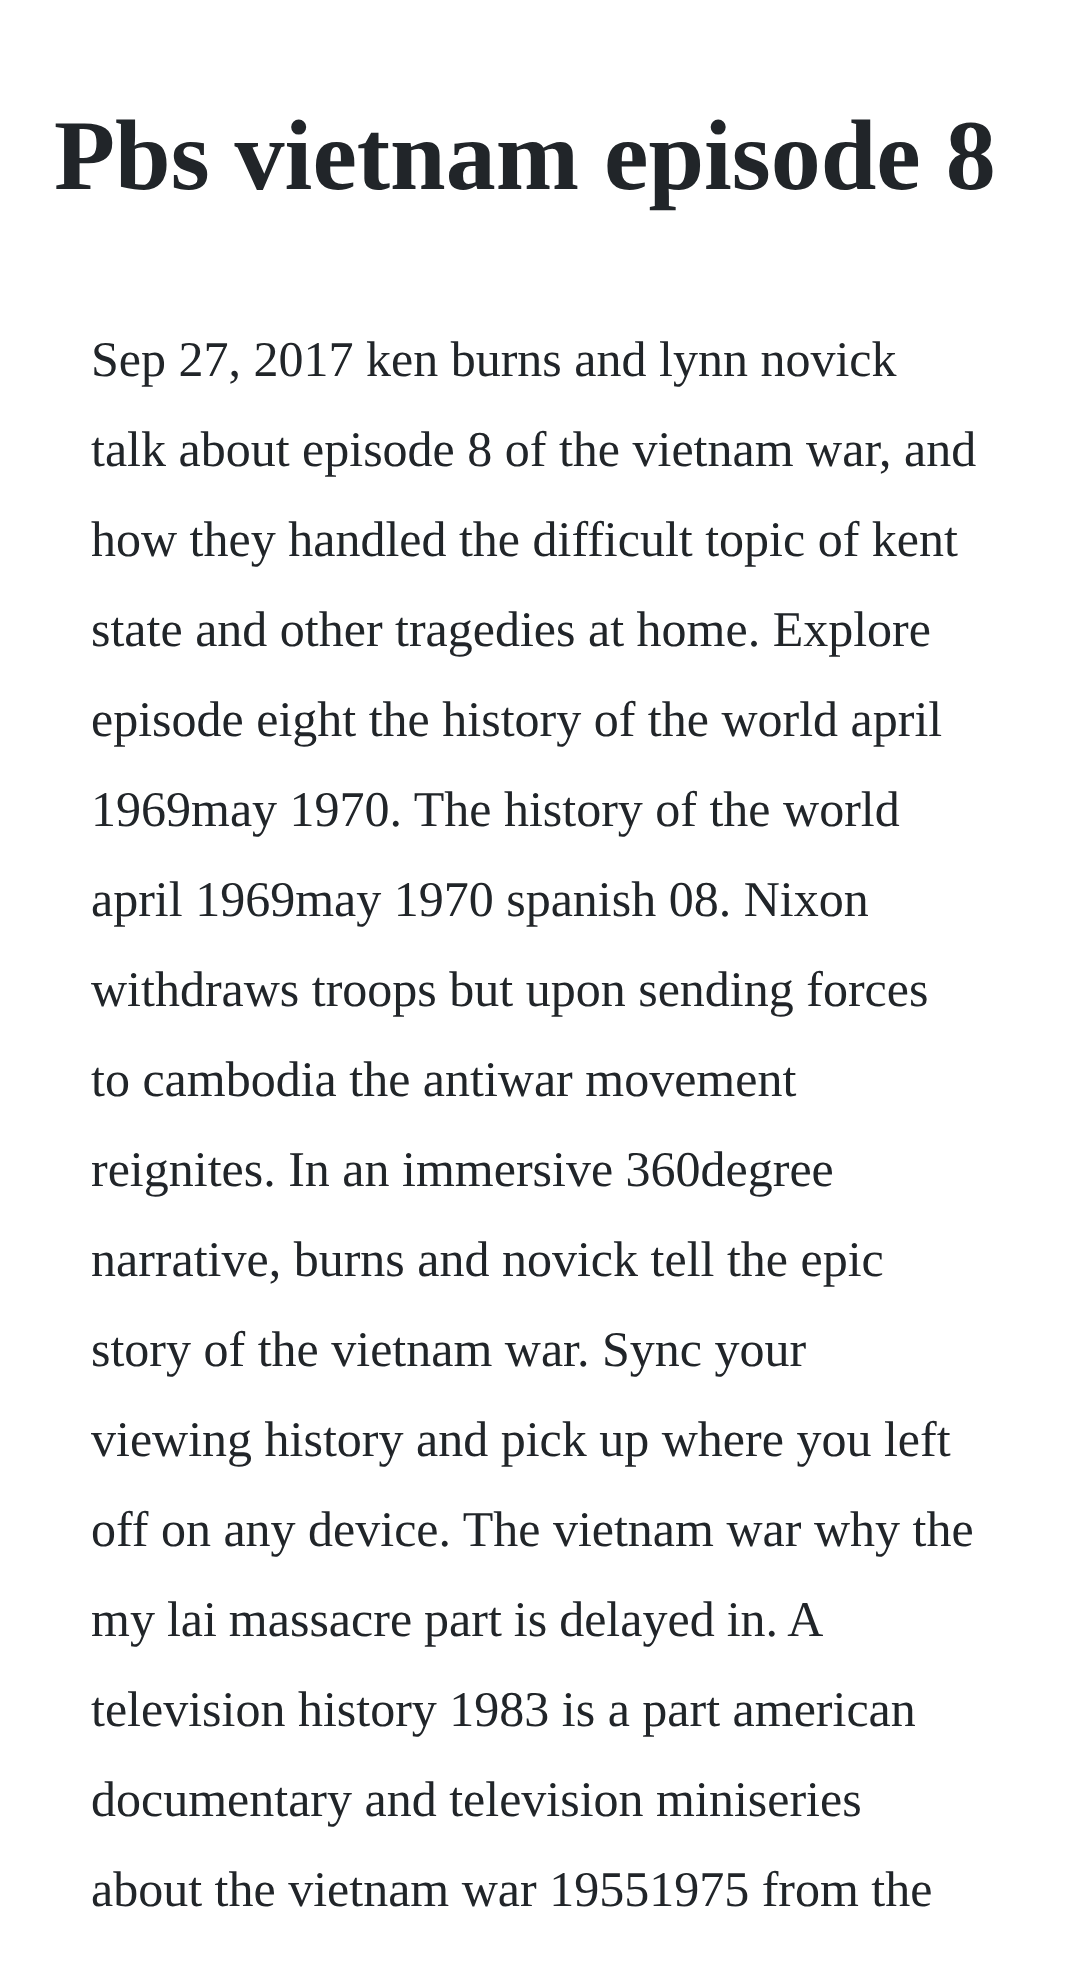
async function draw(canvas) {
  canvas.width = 1069;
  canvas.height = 1984;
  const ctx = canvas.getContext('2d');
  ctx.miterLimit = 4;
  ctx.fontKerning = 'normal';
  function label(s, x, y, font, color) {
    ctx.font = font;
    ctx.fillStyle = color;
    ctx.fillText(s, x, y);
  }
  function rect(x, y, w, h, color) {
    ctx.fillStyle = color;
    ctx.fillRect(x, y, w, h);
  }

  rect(0, 0, 1069, 1984, '#fff');
  label('Pbs vietnam episode 8', 54, 189, 'bold 100px Liberation Serif', '#212529');
  label('Sep 27, 2017 ken burns and lynn novick', 91, 376, '50px Liberation Serif', '#212529');
  label('talk about episode 8 of the vietnam war, and', 91, 466, '50px Liberation Serif', '#212529');
  label('how they handled the difficult topic of kent', 91, 556, '50px Liberation Serif', '#212529');
  label('state and other tragedies at home. Explore', 91, 646, '50px Liberation Serif', '#212529');
  label('episode eight the history of the world april', 91, 736, '50px Liberation Serif', '#212529');
  label('1969may 1970. The history of the world', 91, 826, '50px Liberation Serif', '#212529');
  label('april 1969may 1970 spanish 08. Nixon', 91, 916, '50px Liberation Serif', '#212529');
  label('withdraws troops but upon sending forces', 91, 1006, '50px Liberation Serif', '#212529');
  label('to cambodia the antiwar movement', 91, 1096, '50px Liberation Serif', '#212529');
  label('reignites. In an immersive 360degree', 91, 1186, '50px Liberation Serif', '#212529');
  label('narrative, burns and novick tell the epic', 91, 1276, '50px Liberation Serif', '#212529');
  label('story of the vietnam war. Sync your', 91, 1366, '50px Liberation Serif', '#212529');
  label('viewing history and pick up where you left', 91, 1456, '50px Liberation Serif', '#212529');
  label('off on any device. The vietnam war why the', 91, 1546, '50px Liberation Serif', '#212529');
  ctx.wordSpacing = '-0.5px';
  label('my lai massacre part is delayed in. A', 91, 1636, '50px Liberation Serif', '#212529');
  ctx.wordSpacing = '0px';
  label('television history 1983 is a part american', 91, 1726, '50px Liberation Serif', '#212529');
  label('documentary and television miniseries', 91, 1816, '50px Liberation Serif', '#212529');
  label('about the vietnam war 19551975 from the', 91, 1906, '50px Liberation Serif', '#212529');
}

draw(document.querySelector('canvas'));
